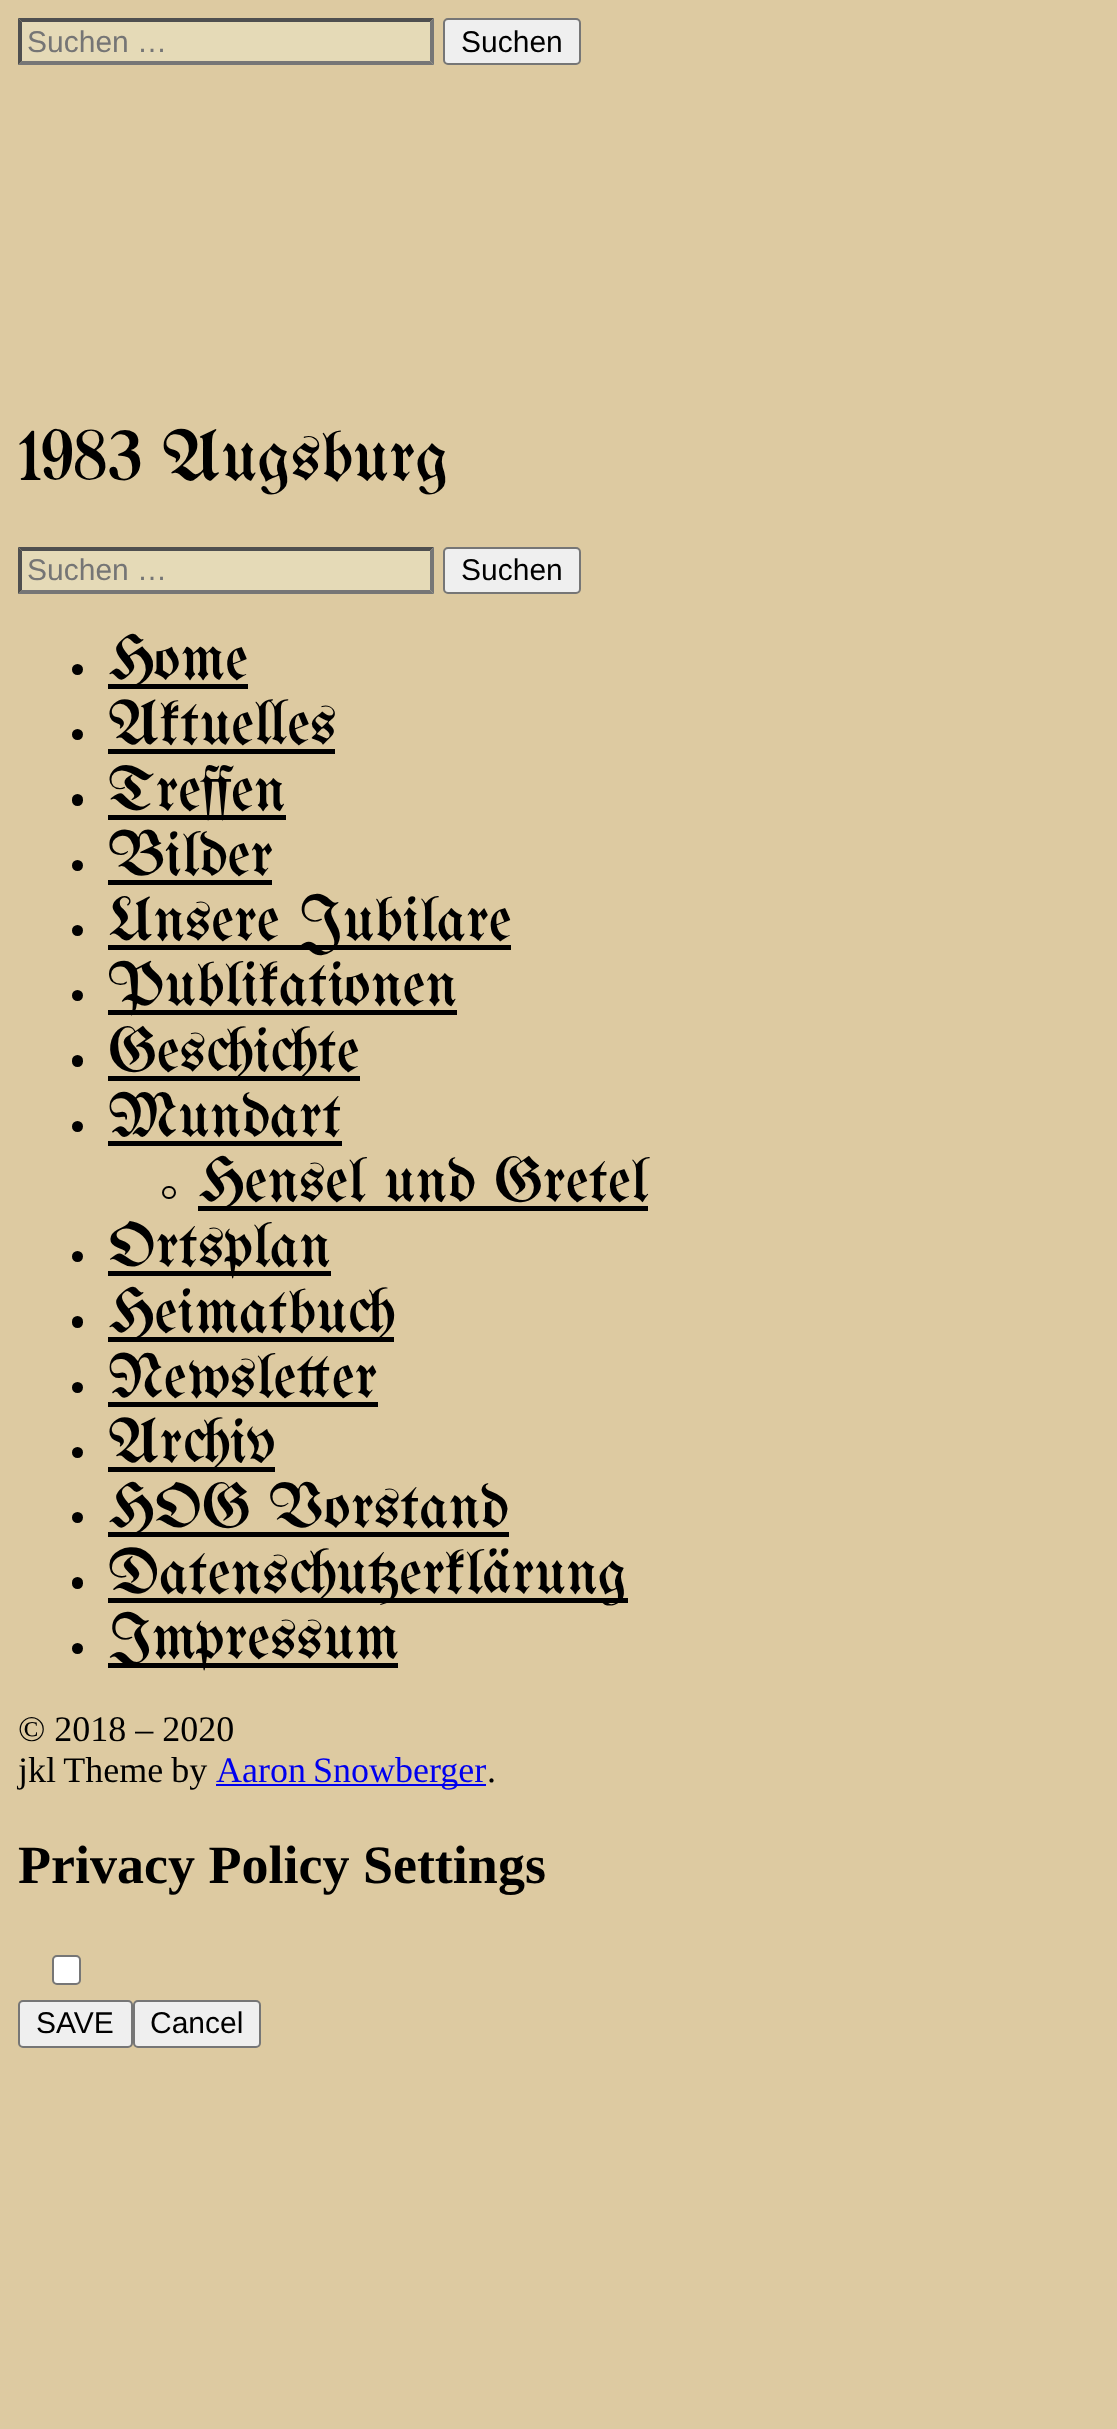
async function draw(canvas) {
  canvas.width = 1117;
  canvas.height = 2429;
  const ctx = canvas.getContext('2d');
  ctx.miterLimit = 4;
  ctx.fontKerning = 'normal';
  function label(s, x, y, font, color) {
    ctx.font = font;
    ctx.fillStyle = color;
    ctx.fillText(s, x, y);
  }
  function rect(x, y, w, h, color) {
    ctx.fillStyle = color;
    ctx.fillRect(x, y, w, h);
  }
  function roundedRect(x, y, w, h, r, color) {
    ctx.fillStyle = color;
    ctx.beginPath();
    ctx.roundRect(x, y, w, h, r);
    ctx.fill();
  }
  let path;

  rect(0, 0, 1117, 2429, '#ddcaa1');
  rect(18, 18, 416, 47, '#e5dab7');
  ctx.fillStyle = '#4f4f4f';
  path = new Path2D('M18 18H434L430 22H22Z');
  ctx.fill(path);
  ctx.fillStyle = '#767676';
  path = new Path2D('M434 18V65L430 61V22Z');
  ctx.fill(path);
  path = new Path2D('M434 65H18L22 61H430Z');
  ctx.fill(path);
  ctx.fillStyle = '#4f4f4f';
  path = new Path2D('M18 65V18L22 22V61Z');
  ctx.fill(path);
  label('Suchen …', 27, 52, '30px Liberation Sans', '#757575');
  ctx.fillStyle = '#efefef';
  ctx.beginPath();
  ctx.roundRect(444, 19, 136, 45, 4);
  ctx.fill();
  ctx.strokeStyle = '#767676';
  ctx.lineWidth = 2;
  ctx.stroke();
  label('Suchen', 461, 52, '30px Liberation Sans', '#000');
  label('1983 Augsburg', 18, 480, '72px UnifrakturMaguntia', '#000');
  rect(18, 547, 416, 47, '#e5dab7');
  ctx.fillStyle = '#4f4f4f';
  path = new Path2D('M18 547H434L430 551H22Z');
  ctx.fill(path);
  ctx.fillStyle = '#767676';
  path = new Path2D('M434 547V594L430 590V551Z');
  ctx.fill(path);
  path = new Path2D('M434 594H18L22 590H430Z');
  ctx.fill(path);
  ctx.fillStyle = '#4f4f4f';
  path = new Path2D('M18 594V547L22 551V590Z');
  ctx.fill(path);
  label('Suchen …', 27, 580, '30px Liberation Sans', '#757575');
  ctx.fillStyle = '#efefef';
  ctx.beginPath();
  ctx.roundRect(444, 548, 136, 45, 4);
  ctx.fill();
  ctx.stroke();
  label('Suchen', 461, 580, '30px Liberation Sans', '#000');
  ctx.beginPath();
  ctx.arc(77.5, 669.5, 5.5, 0, 2 * Math.PI);
  ctx.fill();
  rect(108, 684, 140, 5, '#000');
  label('Home', 108, 679, '63px UnifrakturMaguntia', '#000');
  ctx.beginPath();
  ctx.arc(77.5, 734.5, 5.5, 0, 2 * Math.PI);
  ctx.fill();
  label('Aktuelles', 108, 744, '63px UnifrakturMaguntia', '#000');
  rect(108, 749, 227, 5, '#000');
  roundedRect(72, 794, 11, 12, 5.5, '#000');
  rect(108, 815, 178, 5, '#000');
  label('Treffen', 108, 810, '63px UnifrakturMaguntia', '#000');
  ctx.beginPath();
  ctx.arc(77.5, 865.5, 5.5, 0, 2 * Math.PI);
  ctx.fill();
  label('Bilder', 108, 875, '63px UnifrakturMaguntia', '#000');
  rect(108, 880, 164, 5, '#000');
  ctx.beginPath();
  ctx.arc(77.5, 930.5, 5.5, 0, 2 * Math.PI);
  ctx.fill();
  rect(108, 945, 403, 5, '#000');
  label('Unsere Jubilare', 108, 940, '63px UnifrakturMaguntia', '#000');
  ctx.beginPath();
  ctx.arc(77.5, 995.5, 5.5, 0, 2 * Math.PI);
  ctx.fill();
  rect(108, 1010, 349, 5, '#000');
  label('Publikationen', 108, 1005, '63px UnifrakturMaguntia', '#000');
  roundedRect(72, 1055, 11, 12, 5.5, '#000');
  rect(108, 1076, 252, 5, '#000');
  label('Geschichte', 108, 1071, '63px UnifrakturMaguntia', '#000');
  ctx.beginPath();
  ctx.arc(77.5, 1126.5, 5.5, 0, 2 * Math.PI);
  ctx.fill();
  label('Mundart', 108, 1136, '63px UnifrakturMaguntia', '#000');
  rect(108, 1141, 234, 5, '#000');
  ctx.beginPath();
  ctx.roundRect(163, 1187, 12, 11, 5.5);
  ctx.strokeStyle = '#000';
  ctx.stroke();
  rect(198, 1206, 450, 5, '#000');
  label('Hensel und Gretel', 198, 1201, '63px UnifrakturMaguntia', '#000');
  ctx.beginPath();
  ctx.arc(77.5, 1256.5, 5.5, 0, 2 * Math.PI);
  ctx.fill();
  rect(108, 1271, 223, 5, '#000');
  label('Ortsplan', 108, 1266, '63px UnifrakturMaguntia', '#000');
  roundedRect(72, 1316, 11, 12, 5.5, '#000');
  rect(108, 1337, 286, 5, '#000');
  label('Heimatbuch', 108, 1332, '63px UnifrakturMaguntia', '#000');
  ctx.beginPath();
  ctx.arc(77.5, 1387.5, 5.5, 0, 2 * Math.PI);
  ctx.fill();
  label('Newsletter', 108, 1397, '63px UnifrakturMaguntia', '#000');
  rect(108, 1402, 270, 5, '#000');
  ctx.beginPath();
  ctx.arc(77.5, 1452.5, 5.5, 0, 2 * Math.PI);
  ctx.fill();
  rect(108, 1467, 167, 5, '#000');
  label('Archiv', 108, 1462, '63px UnifrakturMaguntia', '#000');
  ctx.beginPath();
  ctx.arc(77.5, 1517.5, 5.5, 0, 2 * Math.PI);
  ctx.fill();
  rect(108, 1532, 401, 5, '#000');
  label('HOG Vorstand', 108, 1527, '63px UnifrakturMaguntia', '#000');
  roundedRect(72, 1577, 11, 12, 5.5, '#000');
  rect(108, 1598, 520, 5, '#000');
  label('Datenschutzerklärung', 108, 1593, '63px UnifrakturMaguntia', '#000');
  ctx.beginPath();
  ctx.arc(77.5, 1648.5, 5.5, 0, 2 * Math.PI);
  ctx.fill();
  rect(108, 1663, 290, 5, '#000');
  label('Impressum', 108, 1658, '63px UnifrakturMaguntia', '#000');
  label('© 2018 – 2020', 18, 1741, '36px Liberation Serif', '#000');
  ctx.wordSpacing = '-1px';
  label('jkl Theme by', 18, 1782, '36px Liberation Serif', '#000');
  rect(216, 1784, 270, 2, '#00e');
  ctx.wordSpacing = '-2px';
  label('Aaron Snowberger', 216, 1782, '36px Liberation Serif', '#00e');
  ctx.wordSpacing = '0px';
  label('.', 487, 1782, '36px Liberation Serif', '#000');
  label('Privacy Policy Settings', 18, 1883, 'bold 54px Liberation Serif', '#000');
  ctx.fillStyle = '#fff';
  ctx.beginPath();
  ctx.roundRect(53, 1956, 27, 28, 4);
  ctx.fill();
  ctx.strokeStyle = '#767676';
  ctx.stroke();
  ctx.fillStyle = '#efefef';
  ctx.beginPath();
  ctx.roundRect(19, 2001, 113, 46, 4);
  ctx.fill();
  ctx.stroke();
  label('SAVE', 36, 2033, '30px Liberation Sans', '#000');
  ctx.fillStyle = '#efefef';
  ctx.beginPath();
  ctx.roundRect(134, 2001, 126, 46, 4);
  ctx.fill();
  ctx.stroke();
  label('Cancel', 150, 2033, '30px Liberation Sans', '#000');
}

draw(document.querySelector('canvas'));
